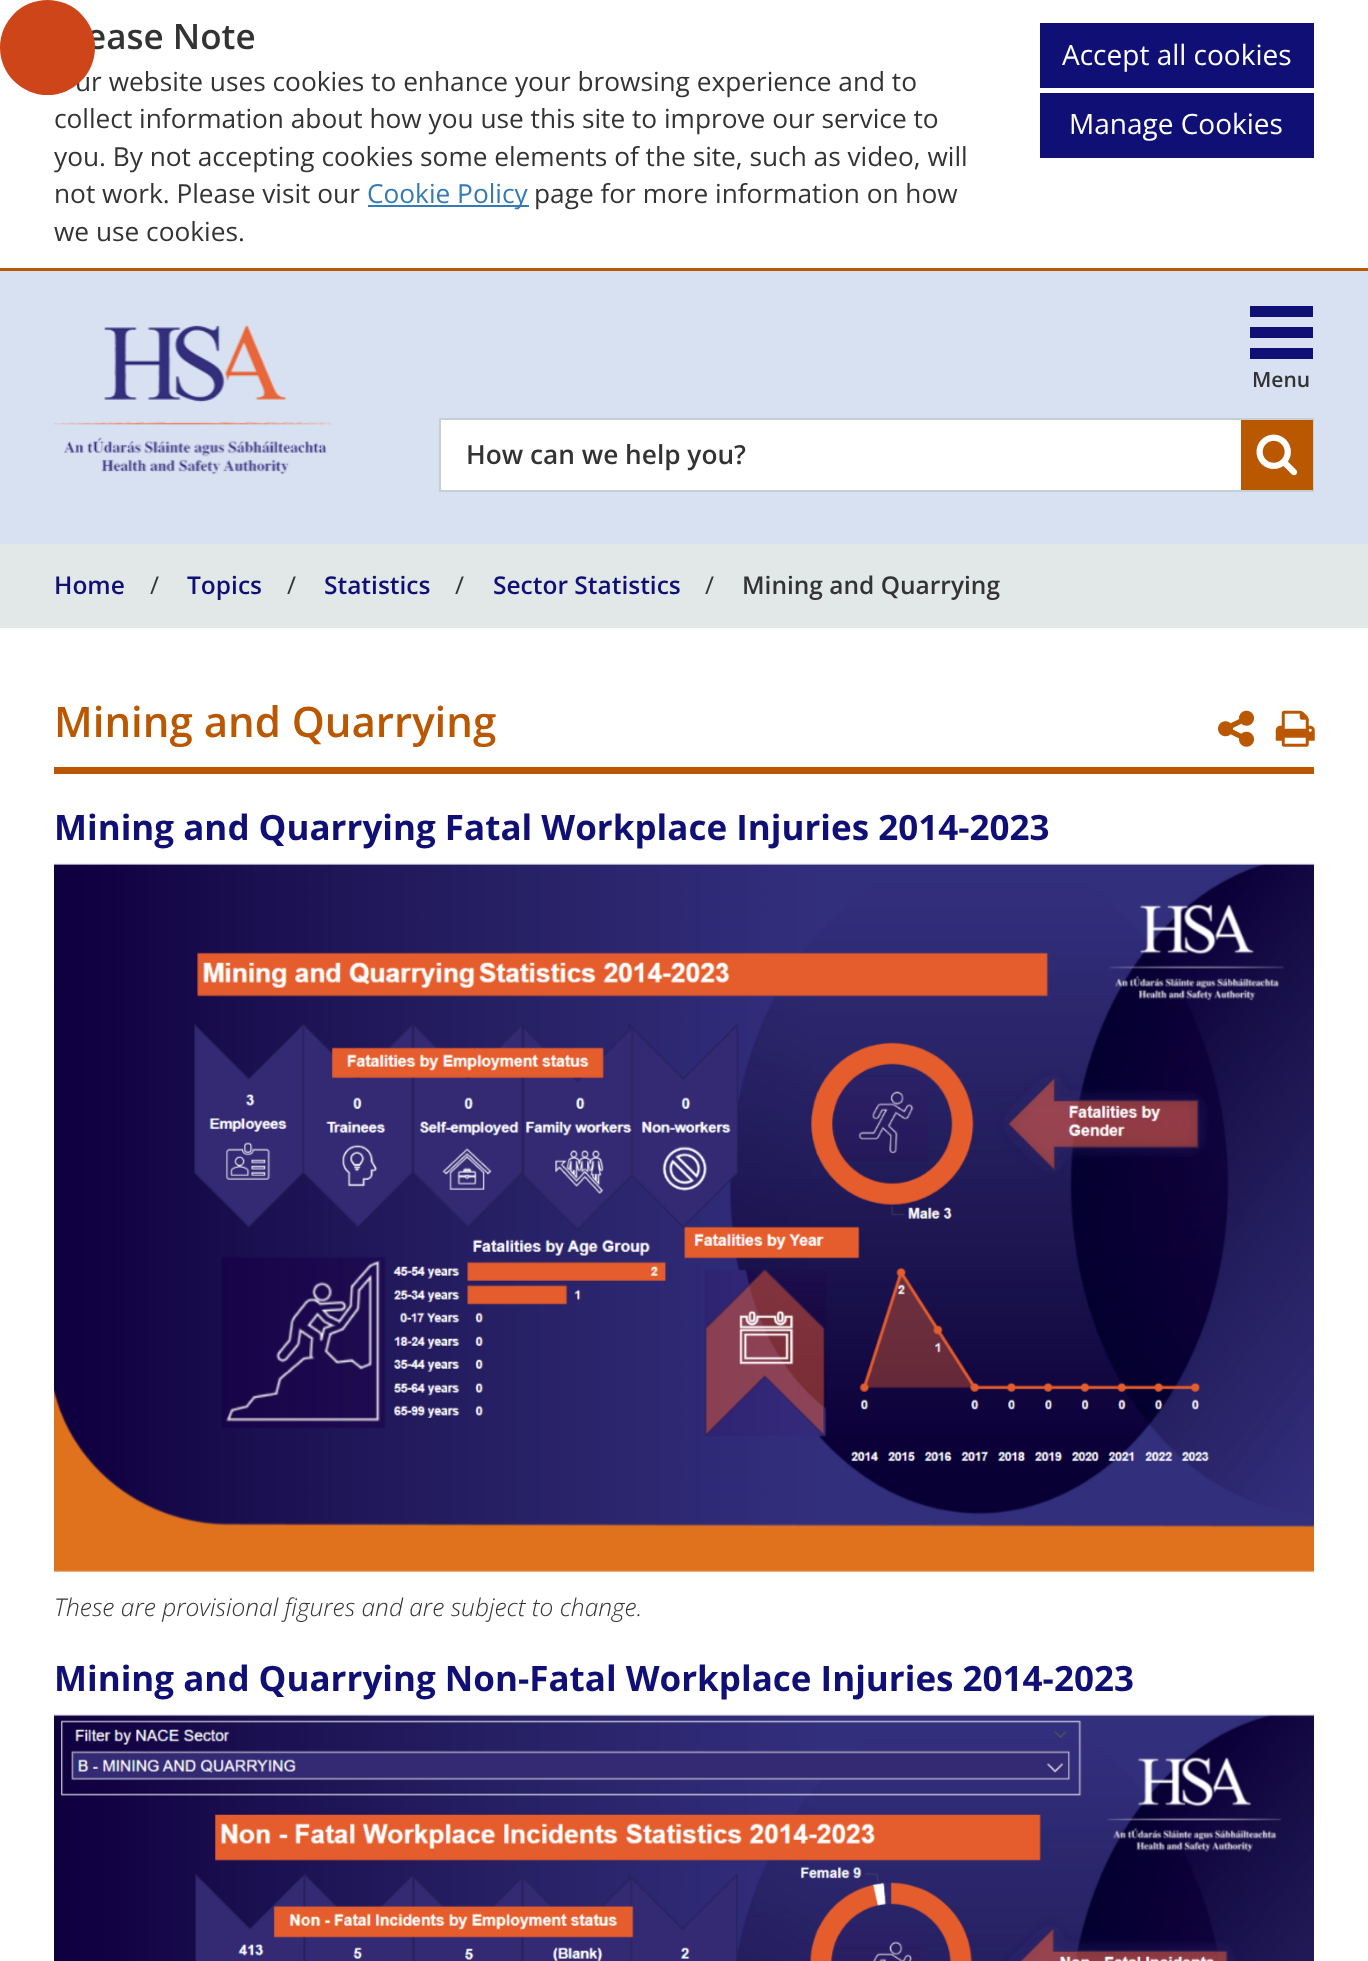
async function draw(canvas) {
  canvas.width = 1368;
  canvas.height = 1961;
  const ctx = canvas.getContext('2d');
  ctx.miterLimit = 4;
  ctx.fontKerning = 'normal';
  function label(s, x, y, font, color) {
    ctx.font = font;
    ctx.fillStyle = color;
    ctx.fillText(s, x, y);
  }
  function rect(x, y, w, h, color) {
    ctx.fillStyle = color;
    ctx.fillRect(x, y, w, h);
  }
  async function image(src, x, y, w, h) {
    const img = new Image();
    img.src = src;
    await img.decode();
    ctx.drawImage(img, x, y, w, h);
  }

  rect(0, 0, 1368, 1961, '#fff');
  label('ease Note', 86, 49, '600 35px Open Sans', '#333');
  label('ur website uses cookies to enhance your browsing experience and to', 75, 91, '26.25px Open Sans', '#333');
  ctx.fillStyle = '#cd4518';
  ctx.beginPath();
  ctx.arc(47.5, 47.5, 47.5, 0, 2 * Math.PI);
  ctx.fill();
  rect(0, 268, 1368, 3, '#b95801');
  label('collect information about how you use this site to improve our service to', 54, 128, '26.25px Open Sans', '#333');
  label('you. By not accepting cookies some elements of the site, such as video, will', 54, 166, '26.25px Open Sans', '#333');
  label('not work. Please visit our', 54, 203, '26.25px Open Sans', '#333');
  rect(368, 205, 161, 2, '#337ab7');
  label('Cookie Policy', 367, 203, '26.25px Open Sans', '#337ab7');
  label('page for more information on how', 534, 203, '26.25px Open Sans', '#333');
  label('we use cookies.', 54, 241, '26.25px Open Sans', '#333');
  rect(1040, 23, 274, 65, '#100f75');
  label('Accept all cookies', 1062, 65, '28px Open Sans', '#fff');
  rect(1040, 93, 274, 65, '#100f75');
  label('Manage Cookies', 1069, 134, '28px Open Sans', '#fff');
  rect(0, 271, 1368, 273, '#d8e1f2');
  await image('assets/img1.png', 54, 325, 277, 149);
  rect(1250, 306, 63, 11, '#100f75');
  rect(1250, 327, 63, 11, '#100f75');
  rect(1250, 348, 63, 11, '#100f75');
  label('Menu', 1252, 387, '600 21px Open Sans', '#333');
  rect(441, 420, 800, 70, '#fff');
  ctx.strokeStyle = '#c4cfd2';
  ctx.lineWidth = 2;
  ctx.strokeRect(440, 419, 873, 72);
  label('How can we help you?', 466, 464, '600 26.25px Open Sans', '#333');
  rect(1241, 420, 72, 70, '#b95801');
  await image('assets/img2.png', 1256, 434, 42, 42);
  rect(0, 544, 1368, 84, '#e2e7e8');
  label('Home', 54, 594, '600 24.5px Open Sans', '#100f75');
  label('/', 150, 594, '24.5px Open Sans', '#333');
  label('Topics', 187, 594, '600 24.5px Open Sans', '#100f75');
  label('/', 287, 594, '24.5px Open Sans', '#333');
  label('Statistics', 324, 594, '600 24.5px Open Sans', '#100f75');
  label('/', 455, 594, '24.5px Open Sans', '#333');
  label('Sector Statistics', 493, 594, '600 24.5px Open Sans', '#100f75');
  label('/', 705, 594, '24.5px Open Sans', '#333');
  label('Mining and Quarrying', 742, 594, '600 24.5px Open Sans', '#333');
  rect(54, 767, 1260, 7, '#b95801');
  label('Mining and Quarrying', 54, 737, '600 42px Open Sans', '#b95801');
  label('Mining and Quarrying Fatal Workplace Injuries 2014-2023', 54, 840, 'bold 35px Open Sans', '#100f75');
  await image('assets/img3.png', 54, 863, 1260, 709);
  label('These are provisional figures and are subject to change.', 54, 1616, 'italic 300 24.5px Open Sans', '#333');
  label('Mining and Quarrying Non-Fatal Workplace Injuries 2014-2023', 54, 1691, 'bold 35px Open Sans', '#100f75');
  await image('assets/img4.png', 54, 1714, 1260, 247);
  await image('assets/img5.png', 1218, 710, 36, 37);
  await image('assets/img6.png', 1275, 710, 40, 37);
}

draw(document.querySelector('canvas'));
